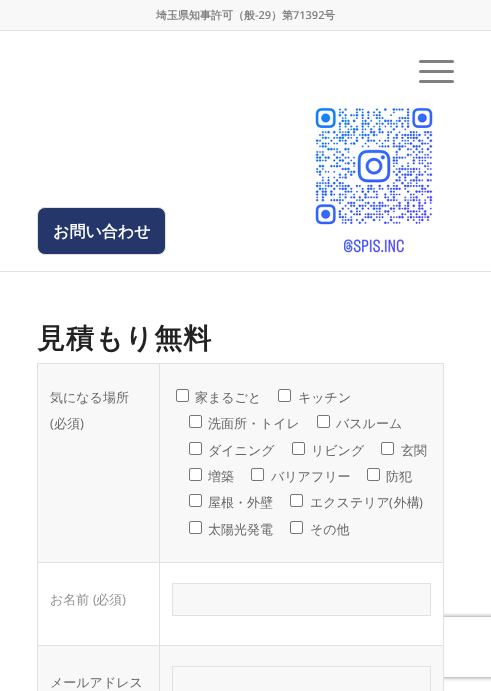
async function draw(canvas) {
  canvas.width = 491;
  canvas.height = 691;
  const ctx = canvas.getContext('2d');
  ctx.miterLimit = 4;
  ctx.fontKerning = 'normal';
  function label(s, x, y, font, color) {
    ctx.font = font;
    ctx.fillStyle = color;
    ctx.fillText(s, x, y);
  }
  function rect(x, y, w, h, color) {
    ctx.fillStyle = color;
    ctx.fillRect(x, y, w, h);
  }
  function roundedRect(x, y, w, h, r, color) {
    ctx.fillStyle = color;
    ctx.beginPath();
    ctx.roundRect(x, y, w, h, r);
    ctx.fill();
  }
  async function image(src, x, y, w, h) {
    const img = new Image();
    img.src = src;
    await img.decode();
    ctx.drawImage(img, x, y, w, h);
  }
  let path;

  rect(0, 0, 491, 691, '#fff');
  rect(0, 0, 491, 30, '#f8f8f8');
  rect(0, 30, 491, 1, '#e1e1e1');
  label('埼玉県知事許可（般', 156, 19, 'bold 11px WenQuanYi Zen Hei', '#808080');
  label('-29', 255, 19, '600 11px Open Sans', '#808080');
  label('）第', 271, 19, 'bold 11px WenQuanYi Zen Hei', '#808080');
  label('71392', 293, 19, '600 11px Open Sans', '#808080');
  label('号', 324, 19, 'bold 11px WenQuanYi Zen Hei', '#808080');
  rect(0, 271, 491, 1, '#e1e1e1');
  roundedRect(419, 70, 35, 3, 1.5, '#808080');
  roundedRect(419, 60, 35, 3, 1.5, '#808080');
  roundedRect(419, 80, 35, 3, 1.5, '#808080');
  ctx.fillStyle = '#25376a';
  ctx.beginPath();
  ctx.roundRect(37.5, 207.5, 128, 47, 7.5);
  ctx.fill();
  ctx.strokeStyle = '#e1e1e1';
  ctx.stroke();
  label('お問い合わせ', 53, 237, 'bold 16px WenQuanYi Zen Hei', '#fff');
  await image('assets/img1.png', 315, 107, 118, 146);
  ctx.letterSpacing = '1px';
  label('見積もり無料', 37, 348, 'bold 28px WenQuanYi Zen Hei', '#222');
  ctx.save();
  path = new Path2D('M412 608H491V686H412ZM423 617H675C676 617 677 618 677 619V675C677 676 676 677 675 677H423C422 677 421 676 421 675V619C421 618 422 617 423 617Z');
  ctx.clip(path, 'evenodd');
  ctx.fillStyle = '#808080';
  ctx.filter = 'blur(2.5px)';
  ctx.beginPath();
  ctx.roundRect(421, 617, 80, 60, 2);
  ctx.fill();
  ctx.filter = 'none';
  ctx.restore();
  rect(38, 364, 405, 327, '#f8f8f8');
  rect(37, 363, 407, 1, '#e1e1e1');
  rect(443, 562, 1, 129, '#e1e1e1');
  rect(443, 363, 1, 200, '#e1e1e1');
  rect(38, 563, 405, 82, '#fff');
  rect(159, 645, 1, 46, '#e1e1e1');
  rect(159, 645, 285, 1, '#e1e1e1');
  rect(159, 562, 1, 84, '#e1e1e1');
  rect(159, 562, 285, 1, '#e1e1e1');
  rect(159, 363, 1, 200, '#e1e1e1');
  rect(37, 645, 1, 46, '#e1e1e1');
  rect(37, 645, 123, 1, '#e1e1e1');
  rect(37, 562, 1, 84, '#e1e1e1');
  rect(37, 562, 123, 1, '#e1e1e1');
  rect(37, 363, 1, 200, '#e1e1e1');
  ctx.letterSpacing = '0px';
  label('気になる場所', 50, 402, '500 13px WenQuanYi Zen Hei', '#666');
  label('(', 50, 428, '13px Open Sans', '#666');
  label('必須', 54, 428, '500 13px WenQuanYi Zen Hei', '#666');
  label(')', 80, 428, '13px Open Sans', '#666');
  ctx.fillStyle = '#fff';
  ctx.beginPath();
  ctx.roundRect(176.5, 389.5, 12, 12, 1.5);
  ctx.fill();
  ctx.strokeStyle = '#767676';
  ctx.stroke();
  label('家まるごと', 195, 402, '500 13px WenQuanYi Zen Hei', '#666');
  ctx.fillStyle = '#fff';
  ctx.beginPath();
  ctx.roundRect(278.5, 389.5, 12, 12, 1.5);
  ctx.fill();
  ctx.stroke();
  label('キッチン', 298, 402, '500 13px WenQuanYi Zen Hei', '#666');
  ctx.fillStyle = '#fff';
  ctx.beginPath();
  ctx.roundRect(189.5, 415.5, 12, 12, 1.5);
  ctx.fill();
  ctx.stroke();
  label('洗面所・トイレ', 208, 428, '500 13px WenQuanYi Zen Hei', '#666');
  ctx.fillStyle = '#fff';
  ctx.beginPath();
  ctx.roundRect(317.5, 415.5, 12, 12, 1.5);
  ctx.fill();
  ctx.stroke();
  label('バスルーム', 336, 428, '500 13px WenQuanYi Zen Hei', '#666');
  ctx.fillStyle = '#fff';
  ctx.beginPath();
  ctx.roundRect(189.5, 442.5, 12, 12, 1.5);
  ctx.fill();
  ctx.stroke();
  label('ダイニング', 208, 455, '500 13px WenQuanYi Zen Hei', '#666');
  ctx.fillStyle = '#fff';
  ctx.beginPath();
  ctx.roundRect(292.5, 442.5, 12, 12, 1.5);
  ctx.fill();
  ctx.stroke();
  label('リビング', 311, 455, '500 13px WenQuanYi Zen Hei', '#666');
  ctx.fillStyle = '#fff';
  ctx.beginPath();
  ctx.roundRect(381.5, 442.5, 12, 12, 1.5);
  ctx.fill();
  ctx.stroke();
  label('玄関', 401, 455, '500 13px WenQuanYi Zen Hei', '#666');
  ctx.fillStyle = '#fff';
  ctx.beginPath();
  ctx.roundRect(189.5, 468.5, 12, 12, 1.5);
  ctx.fill();
  ctx.stroke();
  label('増築', 208, 481, '500 13px WenQuanYi Zen Hei', '#666');
  ctx.fillStyle = '#fff';
  ctx.beginPath();
  ctx.roundRect(251.5, 468.5, 12, 12, 1.5);
  ctx.fill();
  ctx.stroke();
  label('バリアフリー', 271, 481, '500 13px WenQuanYi Zen Hei', '#666');
  ctx.fillStyle = '#fff';
  ctx.beginPath();
  ctx.roundRect(367.5, 468.5, 12, 12, 1.5);
  ctx.fill();
  ctx.stroke();
  label('防犯', 386, 481, '500 13px WenQuanYi Zen Hei', '#666');
  ctx.fillStyle = '#fff';
  ctx.beginPath();
  ctx.roundRect(189.5, 494.5, 12, 12, 1.5);
  ctx.fill();
  ctx.stroke();
  label('屋根・外壁', 208, 507, '500 13px WenQuanYi Zen Hei', '#666');
  ctx.fillStyle = '#fff';
  ctx.beginPath();
  ctx.roundRect(290.5, 494.5, 12, 12, 1.5);
  ctx.fill();
  ctx.stroke();
  label('エクステリア 外構', 310, 507, '500 13px WenQuanYi Zen Hei', '#666');
  label('(', 389, 507, '13px Open Sans', '#666');
  label(')', 419, 507, '13px Open Sans', '#666');
  ctx.fillStyle = '#fff';
  ctx.beginPath();
  ctx.roundRect(189.5, 521.5, 12, 12, 1.5);
  ctx.fill();
  ctx.stroke();
  label('太陽光発電', 208, 534, '500 13px WenQuanYi Zen Hei', '#666');
  ctx.fillStyle = '#fff';
  ctx.beginPath();
  ctx.roundRect(290.5, 521.5, 12, 12, 1.5);
  ctx.fill();
  ctx.stroke();
  label('その他', 310, 534, '500 13px WenQuanYi Zen Hei', '#666');
  label('お名前', 50, 604, '500 13px WenQuanYi Zen Hei', '#919191');
  label('(', 93, 604, '13px Open Sans', '#919191');
  label('必須', 96, 604, '500 13px WenQuanYi Zen Hei', '#919191');
  label(')', 122, 604, '13px Open Sans', '#919191');
  ctx.fillStyle = '#f8f8f8';
  ctx.beginPath();
  ctx.rect(172.5, 583.5, 258, 32);
  ctx.fill();
  ctx.strokeStyle = '#e1e1e1';
  ctx.stroke();
  label('メールアドレス', 50, 687, '500 13px WenQuanYi Zen Hei', '#666');
  ctx.strokeRect(172.5, 666.5, 258, 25);
}

draw(document.querySelector('canvas'));
